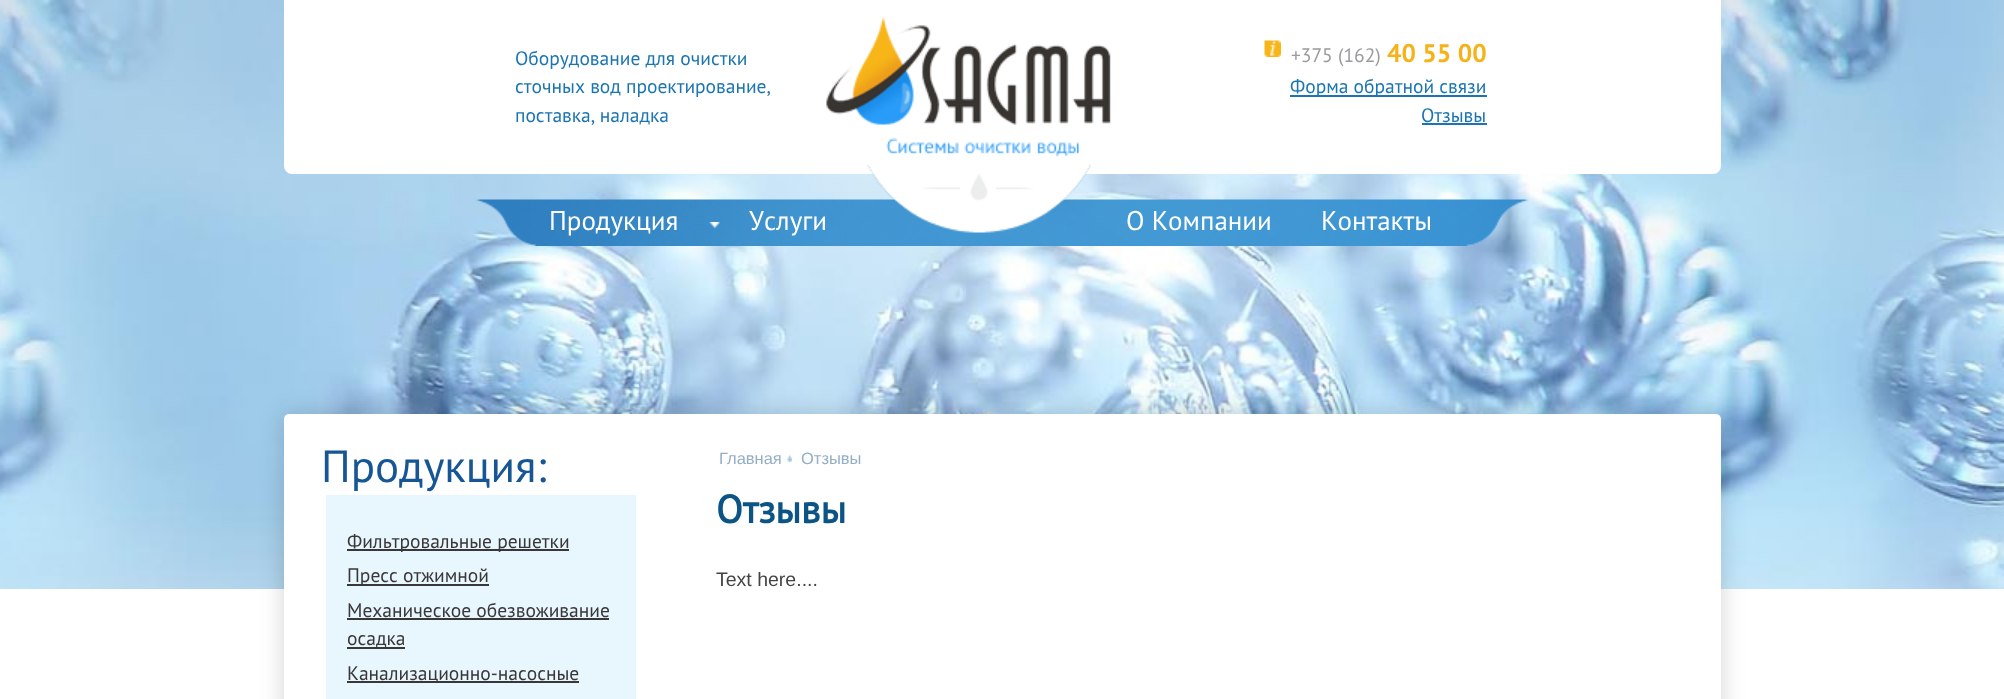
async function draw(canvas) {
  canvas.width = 2004;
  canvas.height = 699;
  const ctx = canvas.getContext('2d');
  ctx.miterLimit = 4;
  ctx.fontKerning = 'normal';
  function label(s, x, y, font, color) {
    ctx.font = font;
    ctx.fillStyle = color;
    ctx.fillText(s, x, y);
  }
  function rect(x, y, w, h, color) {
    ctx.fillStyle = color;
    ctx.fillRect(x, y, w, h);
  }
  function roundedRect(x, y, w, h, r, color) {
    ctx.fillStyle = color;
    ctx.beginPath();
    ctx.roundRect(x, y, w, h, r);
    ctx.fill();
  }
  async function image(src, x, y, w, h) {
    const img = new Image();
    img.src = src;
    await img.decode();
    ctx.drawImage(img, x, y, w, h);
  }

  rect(0, 0, 2004, 699, '#fff');
  await image('assets/img1.png', 0, 0, 2004, 589);
  ctx.beginPath();
  ctx.roundRect(284, 0, 1437, 174, [0, 0, 8, 8]);
  ctx.fill();
  label('Оборудование для очистки', 515, 65, '19.5px PT Sans', '#1b75b0');
  label('сточных вод проектирование,', 515, 93, '19.5px PT Sans', '#1b75b0');
  label('поставка, наладка', 515, 122, '19.5px PT Sans', '#1b75b0');
  await image('assets/img2.png', 826, 16, 285, 141);
  await image('assets/img3.png', 1264, 40, 17, 17);
  label('+375 (162)', 1291, 62, '19.5px PT Sans', '#999b9d');
  label('40 55 00', 1387, 62, 'bold 25.5px "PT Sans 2"', '#f6b219');
  rect(1290, 95, 197, 2, '#1b75b0');
  label('Форма обратной связи', 1290, 93, '19.5px PT Sans', '#1b75b0');
  label('Отзывы', 1421, 122, '19.5px PT Sans', '#1b75b0');
  rect(1422, 123, 65, 2, '#1b75b0');
  await image('assets/img5.png', 475, 199, 1054, 47);
  await image('assets/img4.png', 867, 165, 224, 68);
  label('Продукция', 549, 230, '27px PT Sans', '#fff');
  await image('assets/img6.png', 709, 222, 11, 6);
  label('Услуги', 749, 230, '27px PT Sans', '#fff');
  label('О Компании', 1126, 230, '27px PT Sans', '#fff');
  label('Контакты', 1321, 230, '27px PT Sans', '#fff');
  ctx.fillStyle = '#0000002b';
  ctx.filter = 'blur(12px)';
  ctx.beginPath();
  ctx.roundRect(284, 414, 1437, 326, 5);
  ctx.fill();
  ctx.filter = 'none';
  roundedRect(284, 414, 1437, 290, 5, '#fff');
  label('Продукция:', 321, 482, '45px PT Sans', '#175694');
  rect(326, 495, 310, 204, '#e8f6fe');
  rect(347, 549, 222, 2, '#393737');
  label('Фильтровальные решетки', 347, 548, '19.5px PT Sans', '#393737');
  rect(347, 584, 142, 2, '#393737');
  label('Пресс отжимной', 347, 582, '19.5px PT Sans', '#393737');
  label('Механическое обезвоживание', 347, 617, '19.5px PT Sans', '#393737');
  rect(347, 618, 262, 2, '#393737');
  rect(347, 647, 58, 2, '#393737');
  label('осадка', 347, 645, '19.5px PT Sans', '#393737');
  rect(347, 681, 232, 2, '#393737');
  label('Канализационно-насосные', 347, 680, '19.5px PT Sans', '#393737');
  label('Главная', 719, 464, '16.5px Liberation Sans', '#94aec5');
  await image('assets/img7.png', 787, 454, 5, 8);
  label('Отзывы', 801, 464, '16.5px Liberation Sans', '#94aec5');
  label('Отзывы', 716, 523, 'bold 39px PT Sans', '#0b5485');
  label('Text here....', 716, 586, '19.5px Liberation Sans', '#444');
}

draw(document.querySelector('canvas'));
